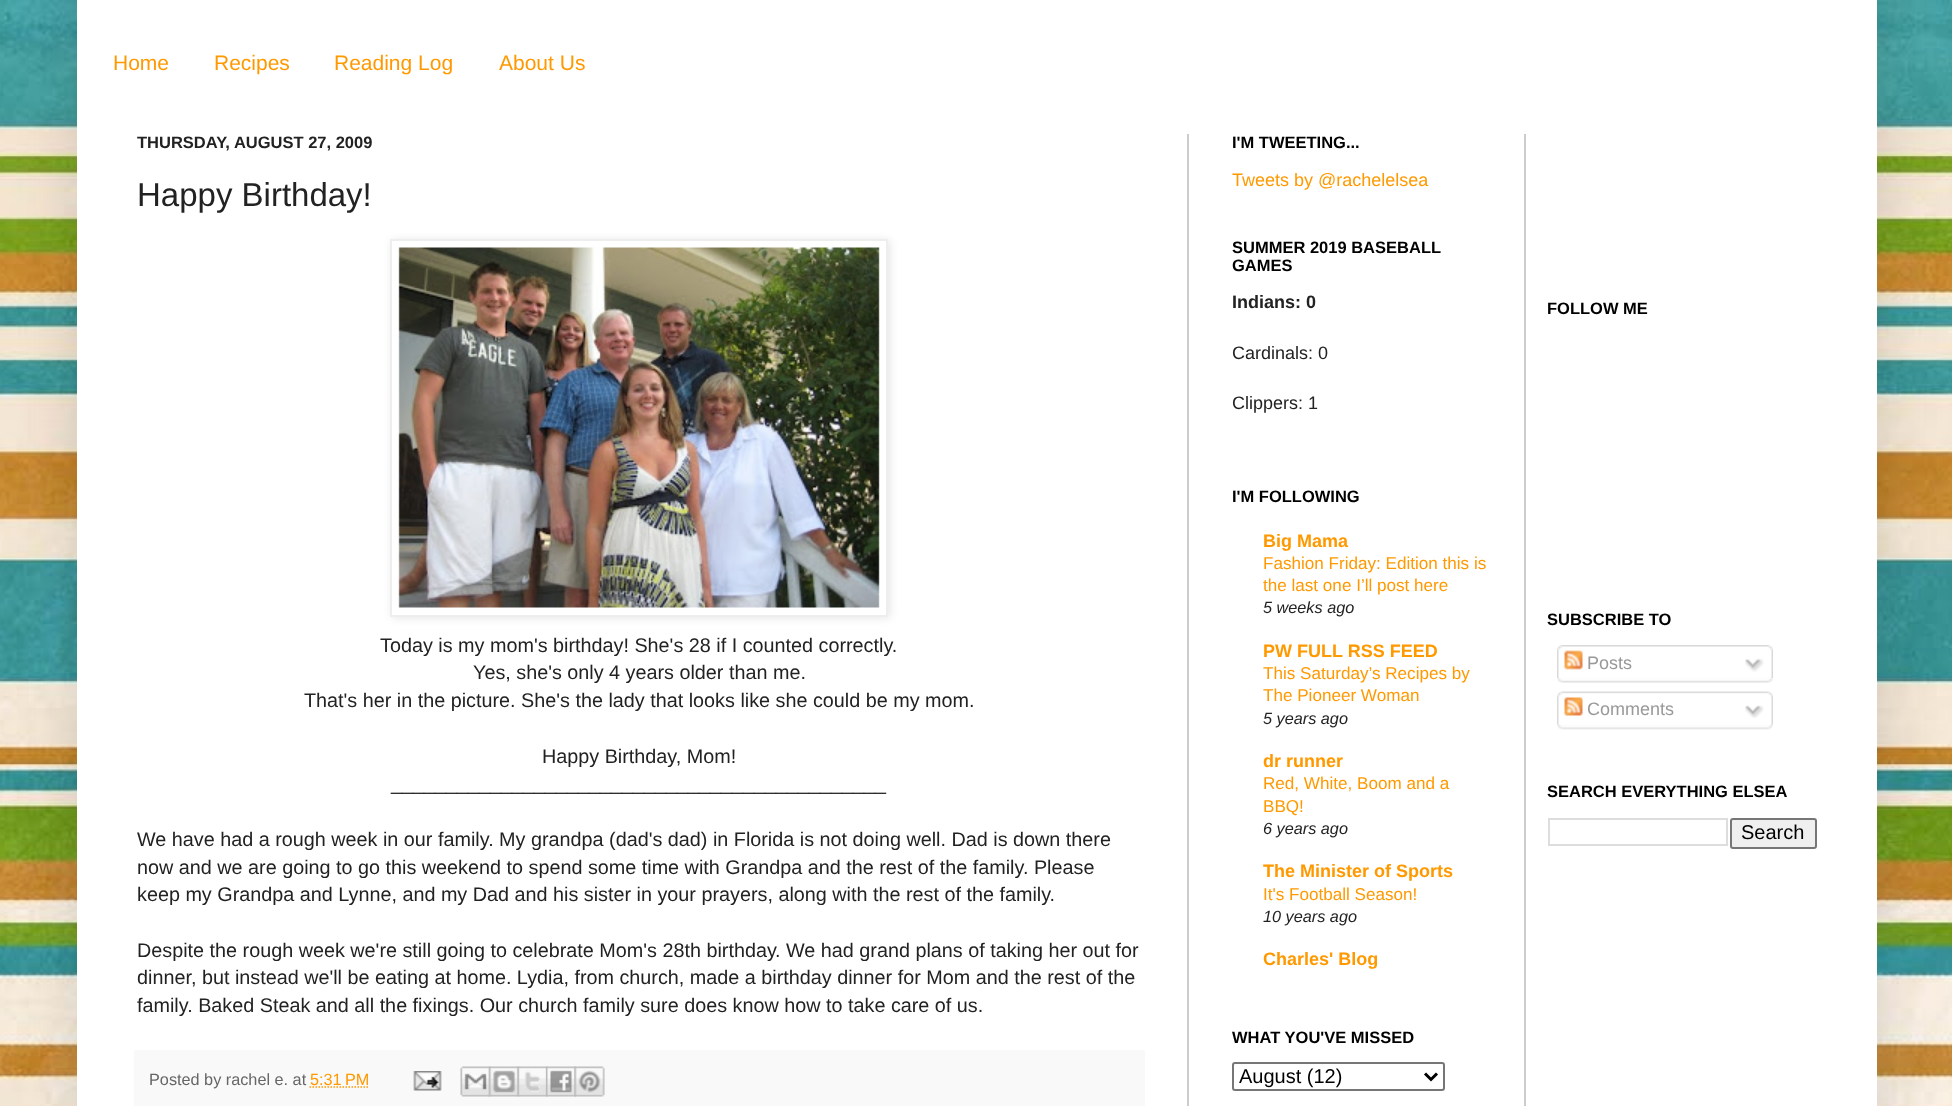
async function draw(canvas) {
  canvas.width = 1952;
  canvas.height = 1106;
  const ctx = canvas.getContext('2d');
  ctx.miterLimit = 4;
  ctx.fontKerning = 'normal';
  function label(s, x, y, font, color) {
    ctx.font = font;
    ctx.fillStyle = color;
    ctx.fillText(s, x, y);
  }
  function rect(x, y, w, h, color) {
    ctx.fillStyle = color;
    ctx.fillRect(x, y, w, h);
  }
  async function image(src, x, y, w, h) {
    const img = new Image();
    img.src = src;
    await img.decode();
    ctx.drawImage(img, x, y, w, h);
  }
  let path;

  rect(0, 0, 1952, 1106, '#fff');
  await image('assets/img1.png', 0, 156, 1952, 950);
  await image('assets/img2.png', 0, 0, 1952, 156);
  ctx.fillStyle = '#00000026';
  ctx.filter = 'blur(30px)';
  ctx.beginPath();
  ctx.rect(77, -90, 1800, 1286);
  ctx.fill();
  ctx.filter = 'none';
  rect(77, 0, 1800, 1106, '#fff');
  label('Home', 113, 70, '21px Liberation Sans', '#f90');
  label('Recipes', 214, 70, '21px Liberation Sans', '#f90');
  label('Reading Log', 334, 70, '21px Liberation Sans', '#f90');
  label('About Us', 499, 70, '21px Liberation Sans', '#f90');
  rect(1187, 134, 2, 972, '#ccc');
  label('THURSDAY, AUGUST 27, 2009', 137, 148, 'bold 16.5px Liberation Sans', '#222');
  label('Happy Birthday!', 137, 206, '33px Liberation Sans', '#222');
  ctx.fillStyle = '#0000001a';
  ctx.filter = 'blur(4px)';
  ctx.beginPath();
  ctx.rect(392, 240, 498, 378);
  ctx.fill();
  ctx.filter = 'none';
  ctx.fillStyle = '#fff';
  ctx.beginPath();
  ctx.rect(391, 240, 496, 376);
  ctx.fill();
  ctx.strokeStyle = '#eee';
  ctx.lineWidth = 2;
  ctx.stroke();
  await image('assets/img3.png', 398, 247, 482, 361);
  label('Today is my mom\'s birthday! She\'s 28 if I counted correctly.', 380, 652, '19.8px Liberation Sans', '#222');
  label('Yes, she\'s only 4 years older than me.', 473, 679, '19.8px Liberation Sans', '#222');
  label('That\'s her in the picture. She\'s the lady that looks like she could be my mom.', 304, 707, '19.8px Liberation Sans', '#222');
  label('Happy Birthday, Mom!', 542, 763, '19.8px Liberation Sans', '#222');
  label('_____________________________________________', 391, 790, '19.8px Liberation Sans', '#222');
  label('We have had a rough week in our family. My grandpa (dad\'s dad) in Florida is not doing well. Dad is down there', 137, 846, '19.8px Liberation Sans', '#222');
  label('now and we are going to go this weekend to spend some time with Grandpa and the rest of the family. Please', 137, 874, '19.8px Liberation Sans', '#222');
  label('keep my Grandpa and Lynne, and my Dad and his sister in your prayers, along with the rest of the family.', 137, 901, '19.8px Liberation Sans', '#222');
  label('Despite the rough week we\'re still going to celebrate Mom\'s 28th birthday', 137, 957, '19.8px Liberation Sans', '#222');
  label('. We had grand plans of taking her out for', 775, 957, '19.8px Liberation Sans', '#222');
  label('dinner, but instead we\'ll be eating at home. Lydia, from church, made a birthday dinner for Mom and the rest of the', 137, 984, '19.8px Liberation Sans', '#222');
  label('family. Baked Steak and all the fixings. Our church family sure does know how to take care of us.', 137, 1012, '19.8px Liberation Sans', '#222');
  rect(134, 1050, 1011, 56, '#f9f9f9');
  label('Posted by rachel e. at', 149, 1085, '16.25px Liberation Sans', '#666');
  label('5:31 PM', 310, 1085, '16.25px Liberation Sans', '#f90');
  path = new Path2D('M309.5 1087H369');
  ctx.strokeStyle = '#f90';
  ctx.lineWidth = 1.5;
  ctx.setLineDash([1.5, 1.5]);
  ctx.stroke(path);
  await image('assets/img4.png', 413, 1071, 29, 20);
  await image('assets/img5.png', 460, 1066, 31, 31);
  await image('assets/img6.png', 488, 1066, 32, 31);
  await image('assets/img7.png', 517, 1066, 31, 31);
  await image('assets/img8.png', 546, 1066, 30, 31);
  await image('assets/img9.png', 574, 1066, 31, 31);
  label('I\'M TWEETING...', 1232, 148, 'bold 16.5px Liberation Sans', '#000');
  label('Tweets by @rachelelsea', 1232, 186, '18px Liberation Sans', '#f90');
  label('SUMMER 2019 BASEBALL', 1232, 253, 'bold 16.5px Liberation Sans', '#000');
  label('GAMES', 1232, 271, 'bold 16.5px Liberation Sans', '#000');
  label('Indians: 0', 1232, 308, 'bold 18px Liberation Sans', '#222');
  label('Cardinals: 0', 1232, 359, '18px Liberation Sans', '#222');
  label('Clippers: 1', 1232, 409, '18px Liberation Sans', '#222');
  label('I\'M FOLLOWING', 1232, 502, 'bold 16.5px Liberation Sans', '#000');
  label('Big Mama', 1263, 547, 'bold 18px Liberation Sans', '#f90');
  label('Fashion Friday: Edition this is', 1263, 569, '17.1px Liberation Sans', '#f90');
  label('the last one I’ll post here', 1263, 591, '17.1px Liberation Sans', '#f90');
  label('5 weeks ago', 1263, 613, 'italic 16.25px Liberation Sans', '#222');
  label('PW FULL RSS FEED', 1263, 657, 'bold 18px Liberation Sans', '#f90');
  label('This Saturday’s Recipes by', 1263, 679, '17.1px Liberation Sans', '#f90');
  label('The Pioneer Woman', 1263, 701, '17.1px Liberation Sans', '#f90');
  label('5 years ago', 1263, 724, 'italic 16.25px Liberation Sans', '#222');
  label('dr runner', 1263, 767, 'bold 18px Liberation Sans', '#f90');
  label('Red, White, Boom and a', 1263, 789, '17.1px Liberation Sans', '#f90');
  label('BBQ!', 1263, 812, '17.1px Liberation Sans', '#f90');
  label('6 years ago', 1263, 834, 'italic 16.25px Liberation Sans', '#222');
  label('The Minister of Sports', 1263, 877, 'bold 18px Liberation Sans', '#f90');
  label('It\'s Football Season!', 1263, 900, '17.1px Liberation Sans', '#f90');
  label('10 years ago', 1263, 922, 'italic 16.25px Liberation Sans', '#222');
  label('Charles\' Blog', 1263, 965, 'bold 18px Liberation Sans', '#f90');
  label('WHAT YOU\'VE MISSED', 1232, 1043, 'bold 16.5px Liberation Sans', '#000');
  ctx.beginPath();
  ctx.roundRect(1233, 1063, 211, 27, 2);
  ctx.strokeStyle = '#767676';
  ctx.lineWidth = 2;
  ctx.setLineDash([]);
  ctx.stroke();
  path = new Path2D('M1425 1073.5L1431 1079.5L1437 1073.5');
  ctx.strokeStyle = '#000';
  ctx.lineWidth = 3;
  ctx.stroke(path);
  label('August (12)', 1239, 1083, '20px Liberation Sans', '#000');
  rect(1524, 134, 2, 972, '#ccc');
  label('FOLLOW ME', 1547, 314, 'bold 16.5px Liberation Sans', '#000');
  label('SUBSCRIBE TO', 1547, 625, 'bold 16.5px Liberation Sans', '#000');
  await image('assets/img10.png', 1557, 645, 216, 33);
  await image('assets/img11.png', 1564, 650, 19, 20);
  label('Posts', 1587, 669, '18px Liberation Sans', '#999');
  await image('assets/img12.png', 1745, 658, 19, 14);
  await image('assets/img13.png', 1557, 677, 216, 6);
  await image('assets/img14.png', 1557, 691, 216, 34);
  await image('assets/img15.png', 1564, 697, 19, 19);
  label('Comments', 1587, 715, '18px Liberation Sans', '#999');
  await image('assets/img16.png', 1745, 705, 19, 13);
  await image('assets/img17.png', 1557, 724, 216, 6);
  label('SEARCH EVERYTHING ELSEA', 1547, 797, 'bold 16.5px Liberation Sans', '#000');
  ctx.strokeStyle = '#ddd';
  ctx.lineWidth = 2;
  ctx.strokeRect(1549, 819, 178, 26);
  ctx.fillStyle = '#efefef';
  ctx.beginPath();
  ctx.roundRect(1731, 819, 85, 29, 2);
  ctx.fill();
  ctx.strokeStyle = '#767676';
  ctx.stroke();
  label('Search', 1741, 839, '20px Liberation Sans', '#000');
}

draw(document.querySelector('canvas'));
